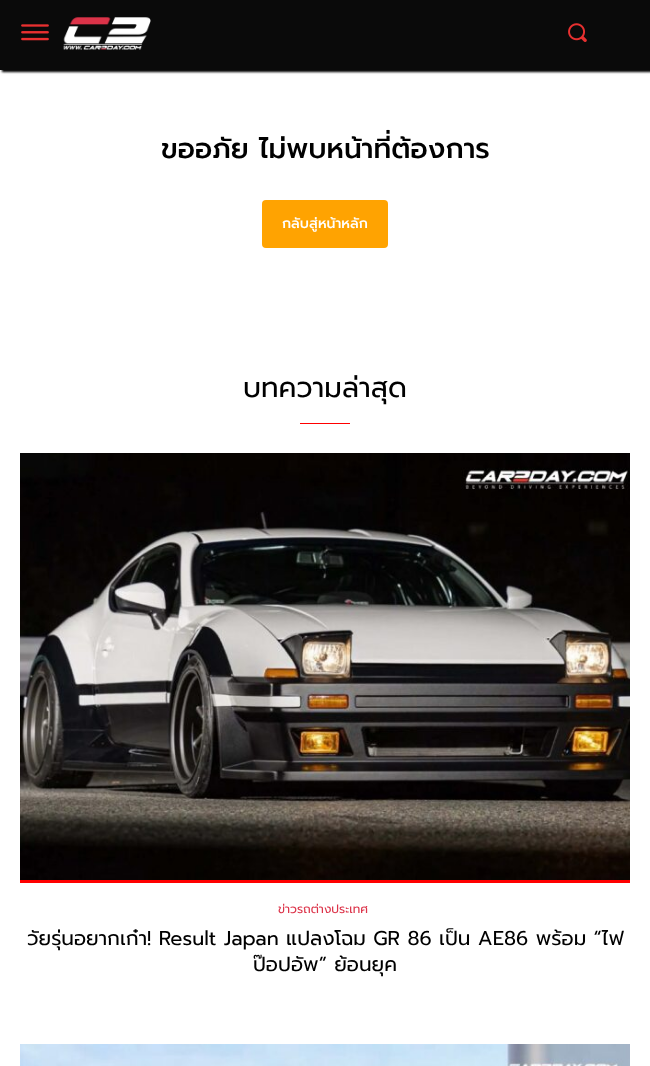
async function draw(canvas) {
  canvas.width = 650;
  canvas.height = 1066;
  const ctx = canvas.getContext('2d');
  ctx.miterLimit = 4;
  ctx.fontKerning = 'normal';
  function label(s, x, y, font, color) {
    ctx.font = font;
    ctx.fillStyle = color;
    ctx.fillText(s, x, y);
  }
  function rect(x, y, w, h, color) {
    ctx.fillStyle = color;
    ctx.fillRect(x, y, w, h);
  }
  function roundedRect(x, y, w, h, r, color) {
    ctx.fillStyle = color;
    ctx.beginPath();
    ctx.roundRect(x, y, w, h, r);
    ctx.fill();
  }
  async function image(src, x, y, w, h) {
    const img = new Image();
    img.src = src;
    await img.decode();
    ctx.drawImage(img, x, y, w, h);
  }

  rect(0, 0, 650, 1066, '#fff');
  ctx.fillStyle = '#0000000f';
  ctx.filter = 'blur(2px)';
  ctx.beginPath();
  ctx.rect(0, 2, 650, 70);
  ctx.fill();
  ctx.filter = 'none';
  rect(0, 0, 650, 70, '#0a0a0a');
  await image('assets/img1.png', 21, 24, 28, 17);
  await image('assets/img2.png', 63, 17, 88, 33);
  ctx.save();
  ctx.beginPath();
  ctx.rect(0, 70, 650, 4);
  ctx.clip();
  ctx.fillStyle = '#000';
  ctx.filter = 'blur(1px)';
  ctx.beginPath();
  ctx.rect(2, 2, 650, 70);
  ctx.fill();
  ctx.filter = 'none';
  ctx.restore();
  await image('assets/img3.png', 568, 23, 19, 19);
  label('ขออภัย ไม่พบหน้าที่ต้องการ', 161, 158, '500 28px Prompt', '#000');
  roundedRect(262, 200, 126, 48, 4, '#ffa301');
  label('กลับสู่หน้าหลัก', 282, 228, '500 14px Prompt', '#fff');
  label('บทความล่าสุด', 243, 397, '28px Prompt', '#000');
  rect(300, 423, 50, 1, '#f00');
  await image('assets/img4.png', 20, 453, 610, 427);
  rect(20, 880, 610, 3, '#f00');
  label('ข่าวรถต่างประเทศ', 278, 913, '12px Prompt', '#dc3349');
  label('วัยรุ่นอยากเก๋า! Result Japan แปลงโฉม GR 86 เป็น AE86 พร้อม “ไฟ', 27, 945, '20px Prompt', '#000');
  label('ป๊อปอัพ” ย้อนยุค', 253, 971, '20px Prompt', '#000');
  await image('assets/img5.png', 20, 1044, 610, 22);
}

draw(document.querySelector('canvas'));
